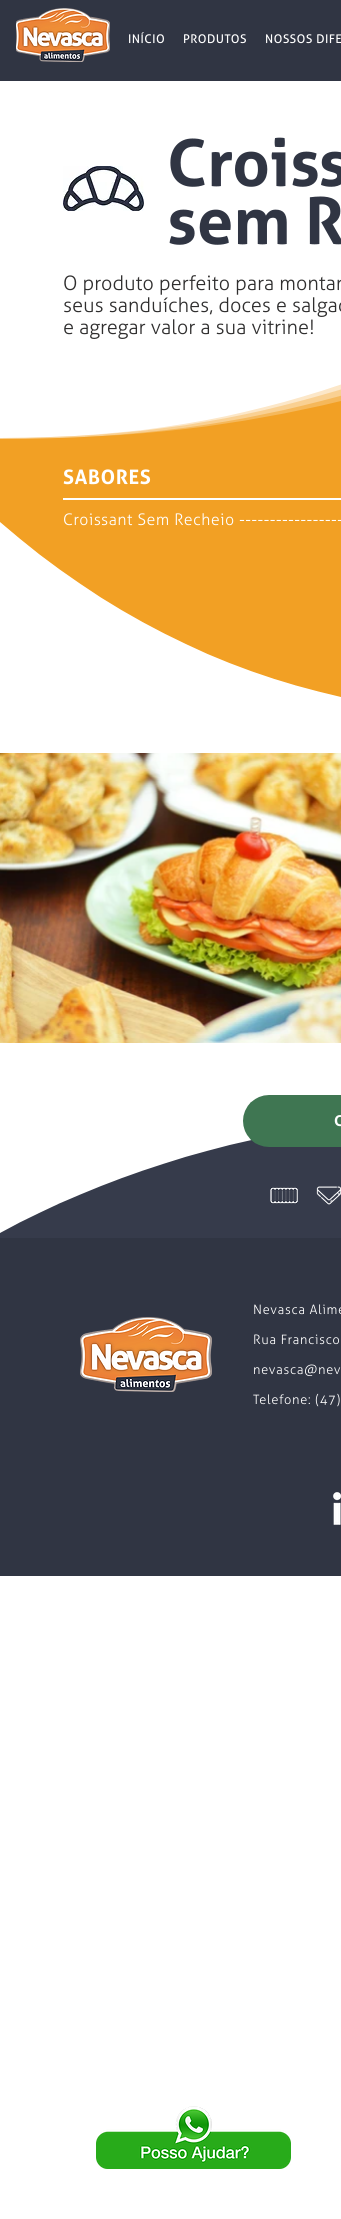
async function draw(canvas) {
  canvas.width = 341;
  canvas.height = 2219;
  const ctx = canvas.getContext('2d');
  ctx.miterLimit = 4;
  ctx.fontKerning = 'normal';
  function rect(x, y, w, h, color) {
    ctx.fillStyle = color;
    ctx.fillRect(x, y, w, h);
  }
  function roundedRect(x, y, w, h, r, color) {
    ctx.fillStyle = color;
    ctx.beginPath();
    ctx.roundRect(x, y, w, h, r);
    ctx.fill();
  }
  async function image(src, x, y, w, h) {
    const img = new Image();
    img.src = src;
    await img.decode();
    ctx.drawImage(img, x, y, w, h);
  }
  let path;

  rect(0, 0, 341, 2219, '#fff');
  rect(0, 0, 341, 81, '#303543');
  await image('assets/img1.png', 16, 8, 94, 54);
  await image('assets/img2.png', 129, 32, 35, 12);
  await image('assets/img3.png', 184, 34, 62, 10);
  await image('assets/img4.png', 266, 34, 75, 10);
  await image('assets/img5.png', 63, 166, 81, 45);
  await image('assets/img6.png', 170, 137, 171, 50);
  await image('assets/img7.png', 169, 196, 172, 49);
  await image('assets/img8.png', 64, 275, 277, 20);
  await image('assets/img9.png', 64, 297, 277, 20);
  await image('assets/img10.png', 64, 319, 249, 20);
  ctx.fillStyle = '#fce7c8';
  path = new Path2D('M0 442V438C232 438 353 384 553 302C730 229 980 232 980 232V442Z');
  ctx.fill(path);
  ctx.fillStyle = '#f2a02454';
  path = new Path2D('M0 442V438C232 438 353 389 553 315C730 250 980 252 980 252V442Z');
  ctx.fill(path);
  ctx.fillStyle = '#f5b85b';
  path = new Path2D('M0 442V439C232 439 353 395 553 329C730 270 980 272 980 272V442Z');
  ctx.fill(path);
  ctx.fillStyle = '#f2a024';
  path = new Path2D('M0 442V439C232 439 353 401 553 342C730 290 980 292 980 292V442Z');
  ctx.fill(path);
  rect(0, 442, 341, 255, '#f2a024');
  await image('assets/img11.png', 63, 469, 88, 16);
  rect(63, 498, 278, 2, '#fff');
  ctx.save();
  ctx.beginPath();
  ctx.rect(0, 513, 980, 200);
  ctx.clip();
  path = new Path2D('M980 522C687 776 293 777 0 522V513H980ZM0 714H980V513H0Z');
  ctx.fill(path, 'evenodd');
  ctx.restore();
  await image('assets/img12.png', 64, 513, 277, 13);
  await image('assets/img13.png', 0, 753, 341, 290);
  ctx.fillStyle = '#363b4b';
  path = new Path2D('M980 1233C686 1075 294 1074 0 1233V1238H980Z');
  ctx.fill(path);
  roundedRect(243, 1095, 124, 52, 26, '#3f7652');
  await image('assets/img14.png', 334, 1115, 7, 12);
  await image('assets/img15.png', 270, 1187, 28, 17);
  await image('assets/img16.png', 316, 1186, 25, 19);
  rect(0, 1238, 341, 338, '#303543');
  await image('assets/img17.png', 80, 1317, 132, 75);
  await image('assets/img18.png', 254, 1304, 87, 11);
  await image('assets/img19.png', 254, 1334, 85, 11);
  await image('assets/img20.png', 254, 1364, 87, 12);
  await image('assets/img21.png', 253, 1393, 87, 14);
  await image('assets/img22.png', 333, 1492, 8, 33);
  await image('assets/img23.png', 96, 2106, 195, 63);
}

draw(document.querySelector('canvas'));
